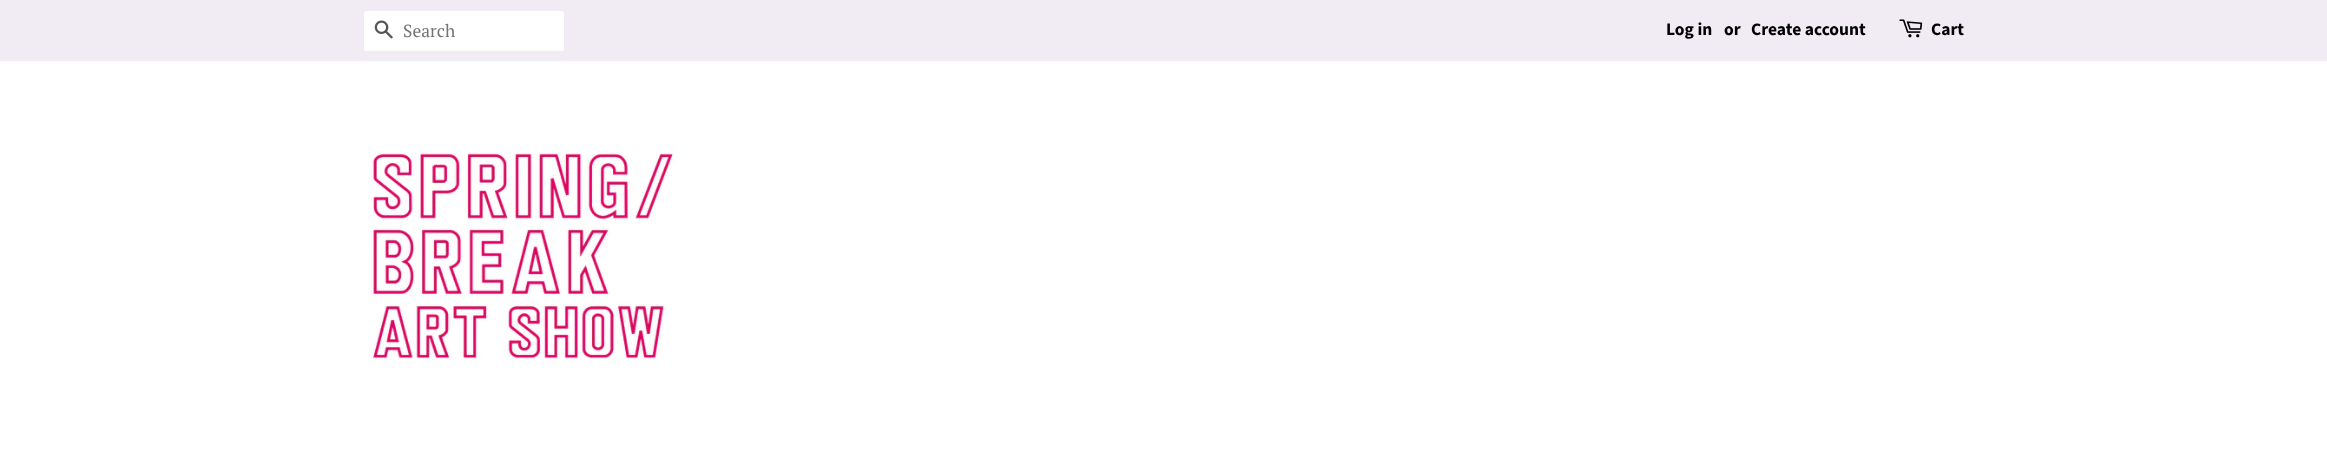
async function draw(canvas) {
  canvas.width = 2327;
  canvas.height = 449;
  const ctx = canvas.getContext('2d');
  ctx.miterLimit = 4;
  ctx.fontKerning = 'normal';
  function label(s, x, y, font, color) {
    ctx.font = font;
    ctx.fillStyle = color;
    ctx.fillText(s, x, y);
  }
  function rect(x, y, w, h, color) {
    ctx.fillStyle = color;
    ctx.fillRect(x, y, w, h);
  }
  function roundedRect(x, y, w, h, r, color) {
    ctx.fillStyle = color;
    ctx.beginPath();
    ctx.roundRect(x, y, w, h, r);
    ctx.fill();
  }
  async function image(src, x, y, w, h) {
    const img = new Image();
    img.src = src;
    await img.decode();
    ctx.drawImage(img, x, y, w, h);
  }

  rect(0, 0, 2327, 449, '#fff');
  rect(0, 0, 2327, 61, '#f1ebf4');
  roundedRect(364, 11, 200, 40, 2.5, '#fff');
  await image('assets/img1.png', 374, 20, 19, 19);
  label('Search', 403, 37, '17.5px PT Serif', '#757575');
  label('Log in', 1666, 35, 'bold 17.5px Source Sans Pro', '#000');
  label('or', 1724, 35, 'bold 17.5px Source Sans Pro', '#000');
  label('Create account', 1751, 35, 'bold 17.5px Source Sans Pro', '#000');
  await image('assets/img2.png', 1899, 19, 24, 19);
  label('Cart', 1931, 35, 'bold 17.5px Source Sans Pro', '#000');
  await image('assets/img3.png', 370, 151, 306, 212);
}

draw(document.querySelector('canvas'));
